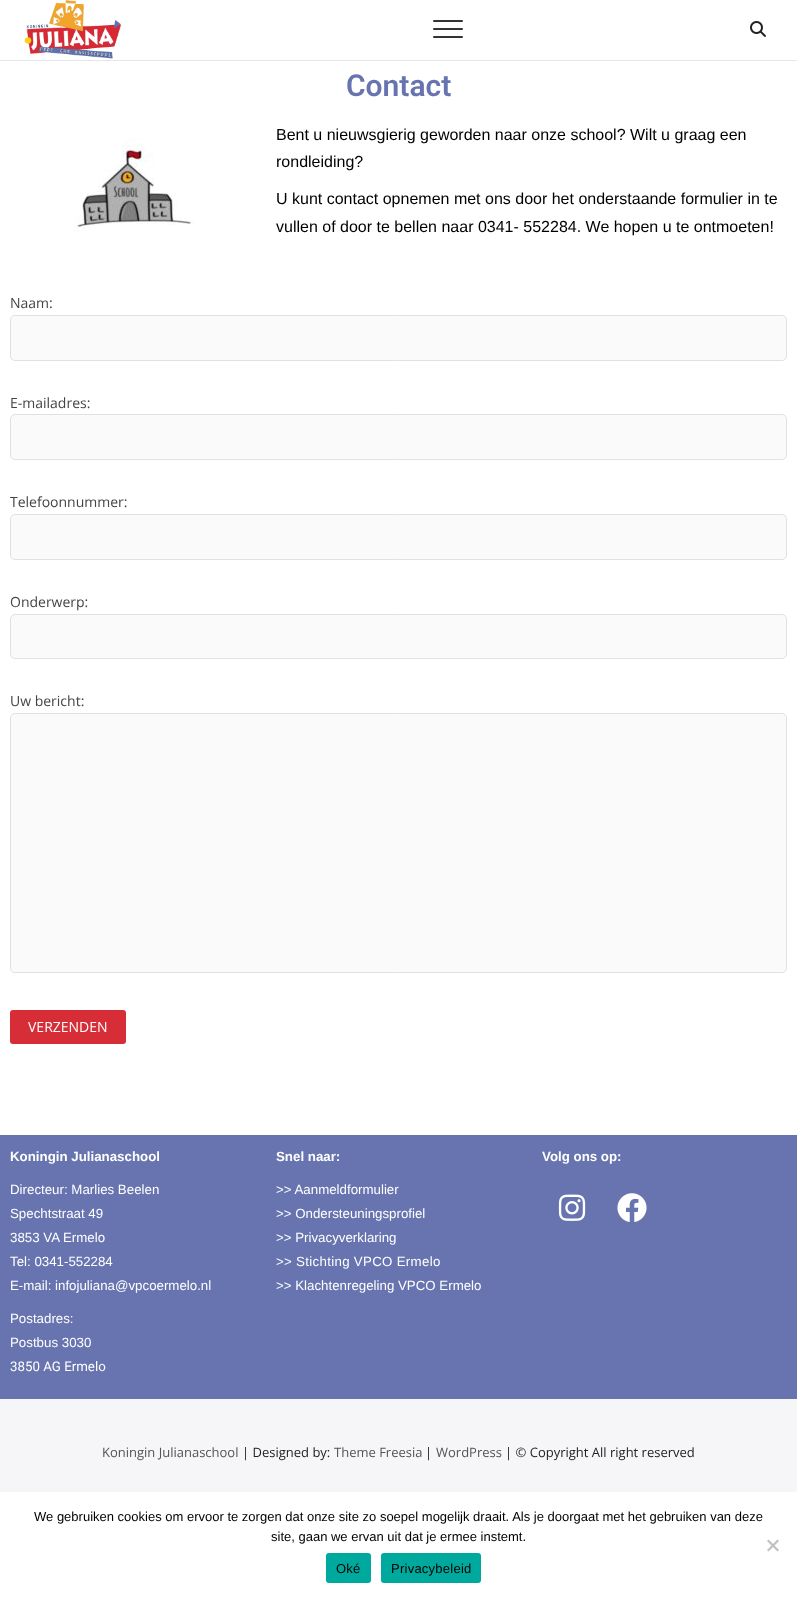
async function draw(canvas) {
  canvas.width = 797;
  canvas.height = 1598;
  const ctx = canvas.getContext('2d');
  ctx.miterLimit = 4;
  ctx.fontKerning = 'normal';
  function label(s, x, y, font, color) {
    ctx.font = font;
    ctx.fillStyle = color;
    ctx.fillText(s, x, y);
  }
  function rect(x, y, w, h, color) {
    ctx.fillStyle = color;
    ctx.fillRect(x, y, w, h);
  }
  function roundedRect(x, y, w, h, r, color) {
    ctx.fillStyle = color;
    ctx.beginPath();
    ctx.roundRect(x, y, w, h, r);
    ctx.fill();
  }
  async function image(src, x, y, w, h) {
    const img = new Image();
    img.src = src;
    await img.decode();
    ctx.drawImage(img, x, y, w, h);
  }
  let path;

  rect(0, 0, 797, 1598, '#fff');
  rect(0, 60, 797, 1, '#e6e6e6');
  await image('assets/img1.png', 24, 0, 97, 59);
  roundedRect(433, 28, 30, 2, 1, '#333');
  roundedRect(433, 20, 30, 2, 1, '#333');
  roundedRect(433, 36, 30, 2, 1, '#333');
  await image('assets/img2.png', 750, 21, 16, 16);
  label('Contact', 346, 96, '600 30px Roboto', '#6774af');
  await image('assets/img3.png', 74, 137, 120, 95);
  label('Bent u nieuwsgierig geworden naar onze school? Wilt u graag een', 276, 140, '16px Liberation Sans', '#000');
  label('rondleiding?', 276, 167, '16px Liberation Sans', '#000');
  label('U kunt contact opnemen met ons door het onderstaande formulier in te', 276, 204, '16px Liberation Sans', '#000');
  label('vullen of door te bellen naar 0341- 552284. We hopen u te ontmoeten!', 276, 232, '16px Liberation Sans', '#000');
  label('Naam:', 10, 308, '14px Open Sans', '#444');
  ctx.fillStyle = '#fafafa';
  ctx.beginPath();
  ctx.roundRect(10.5, 315.5, 776, 45, 4.5);
  ctx.fill();
  ctx.strokeStyle = '#e1e1e1';
  ctx.stroke();
  label('E-mailadres:', 10, 408, '14px Open Sans', '#444');
  ctx.fillStyle = '#fafafa';
  ctx.beginPath();
  ctx.roundRect(10.5, 414.5, 776, 45, 4.5);
  ctx.fill();
  ctx.stroke();
  label('Telefoonnummer:', 10, 507, '14px Open Sans', '#444');
  ctx.fillStyle = '#fafafa';
  ctx.beginPath();
  ctx.roundRect(10.5, 514.5, 776, 45, 4.5);
  ctx.fill();
  ctx.stroke();
  label('Onderwerp:', 10, 607, '14px Open Sans', '#444');
  ctx.fillStyle = '#fafafa';
  ctx.beginPath();
  ctx.roundRect(10.5, 614.5, 776, 44, 4.5);
  ctx.fill();
  ctx.stroke();
  label('Uw bericht:', 10, 706, '14px Open Sans', '#444');
  ctx.fillStyle = '#fafafa';
  ctx.beginPath();
  ctx.roundRect(10.5, 713.5, 776, 259, 4.5);
  ctx.fill();
  ctx.stroke();
  roundedRect(10, 1010, 116, 34, 3, '#d62d37');
  label('VERZENDEN', 28, 1032, '14px Open Sans', '#fff');
  rect(0, 1135, 797, 264, '#6774af');
  label('Koningin Julianaschool', 10, 1161, 'bold 13.3px Liberation Sans', '#fff');
  label('Directeur: Marlies Beelen', 10, 1194, '13.3px Liberation Sans', '#fff');
  label('Spechtstraat 49', 10, 1218, '13.3px Liberation Sans', '#fff');
  label('3853 VA Ermelo', 10, 1242, '13.3px Liberation Sans', '#fff');
  label('Tel: 0341-552284', 10, 1266, '13.3px Liberation Sans', '#fff');
  label('E-mail: infojuliana@vpcoermelo.nl', 10, 1290, '13.3px Liberation Sans', '#fff');
  label('Postadres:', 10, 1323, '13.3px Liberation Sans', '#fff');
  label('Postbus 3030', 10, 1347, '13.3px Liberation Sans', '#fff');
  label('3850 AG Ermelo', 10, 1371, '13.3px Roboto', '#fff');
  label('Snel naar:', 276, 1161, 'bold 13.3px Liberation Sans', '#fff');
  label('>> Aanmeldformulier', 276, 1194, '13.3px Liberation Sans', '#fff');
  label('>> Ondersteuningsprofiel', 276, 1218, '13.3px Liberation Sans', '#fff');
  label('>> Privacyverklaring', 276, 1242, '13.3px Liberation Sans', '#fff');
  ctx.letterSpacing = '0.3px';
  label('>> Stichting VPCO Ermelo', 276, 1266, '13.3px Liberation Sans', '#fff');
  ctx.letterSpacing = '0px';
  label('>> Klachtenregeling VPCO Ermelo', 276, 1290, '13.3px Liberation Sans', '#fff');
  label('Volg ons op:', 542, 1161, 'bold 13.3px Liberation Sans', '#fff');
  await image('assets/img4.png', 558, 1194, 28, 27);
  await image('assets/img5.png', 617, 1193, 30, 29);
  rect(0, 1399, 797, 93, '#f6f6f8');
  label('Koningin Julianaschool', 102, 1457, '13px Open Sans', '#545454');
  label('| Designed by:', 242, 1457, '13px Open Sans', '#222');
  label('Theme Freesia', 334, 1457, '13px Open Sans', '#545454');
  label('|', 425, 1457, '13px Open Sans', '#222');
  label('WordPress', 436, 1457, '13px Open Sans', '#545454');
  label('| © Copyright All right reserved', 505, 1457, '13px Open Sans', '#222');
  label('We gebruiken cookies om ervoor te zorgen dat onze site zo soepel mogelijk draait. Als je doorgaat met het gebruiken van deze', 34, 1521, '13px Liberation Sans', '#000');
  label('site, gaan we ervan uit dat je ermee instemt.', 271, 1541, '13px Liberation Sans', '#000');
  ctx.fillStyle = '#c0c0c0';
  path = new Path2D('M777.5 1539.5L779 1541L768.5 1551.5L767 1550Z');
  ctx.fill(path);
  path = new Path2D('M767 1541L768.5 1539.5L779 1550L777.5 1551.5Z');
  ctx.fill(path);
  roundedRect(326, 1553, 45, 30, 3, '#00a99d');
  ctx.letterSpacing = '0.25px';
  label('Oké', 336, 1573, '13px Liberation Sans', '#000');
  roundedRect(381, 1553, 100, 30, 3, '#00a99d');
  label('Privacybeleid', 391, 1573, '13px Liberation Sans', '#000');
}

draw(document.querySelector('canvas'));
